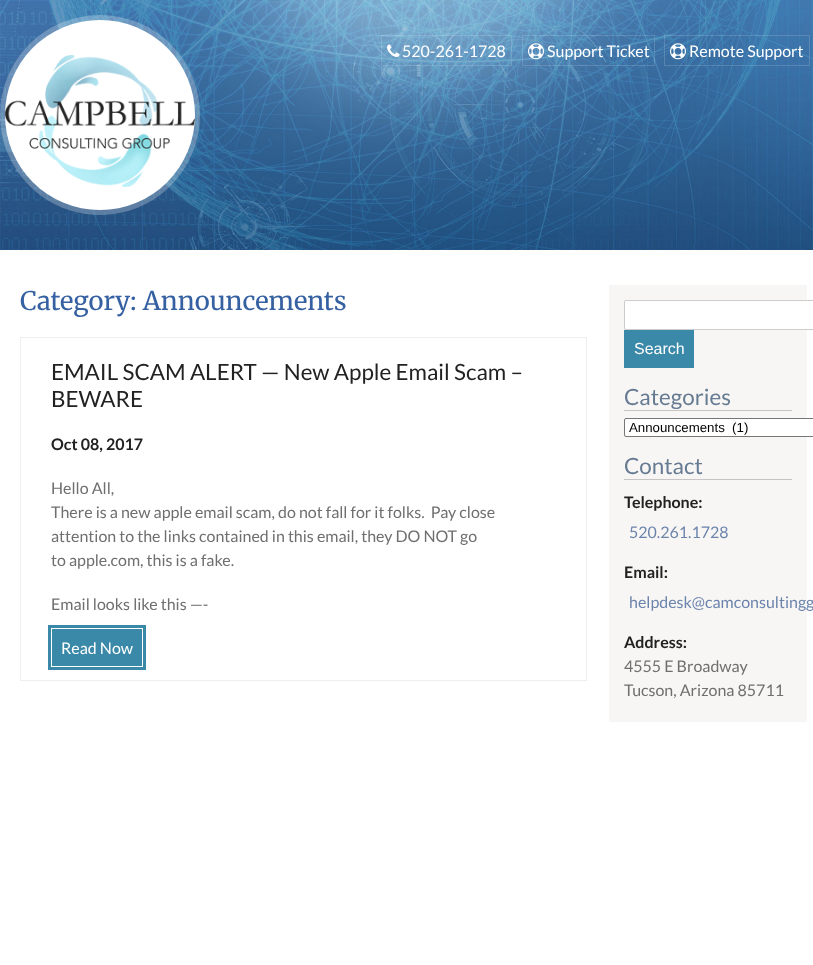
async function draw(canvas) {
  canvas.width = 813;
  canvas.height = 965;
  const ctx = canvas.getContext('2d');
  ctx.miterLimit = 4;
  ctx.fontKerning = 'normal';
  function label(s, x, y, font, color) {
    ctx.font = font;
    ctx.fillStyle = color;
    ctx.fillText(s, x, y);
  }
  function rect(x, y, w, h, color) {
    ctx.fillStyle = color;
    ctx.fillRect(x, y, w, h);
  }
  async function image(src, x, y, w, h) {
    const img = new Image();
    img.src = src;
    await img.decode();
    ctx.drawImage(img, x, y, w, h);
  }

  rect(0, 0, 813, 965, '#fff');
  await image('assets/img1.png', 0, 0, 813, 250);
  ctx.fillStyle = '#ffffff40';
  ctx.beginPath();
  ctx.arc(100, 115, 100, 0, 2 * Math.PI);
  ctx.fill();
  ctx.fillStyle = '#fff';
  ctx.beginPath();
  ctx.arc(100, 115, 95, 0, 2 * Math.PI);
  ctx.fill();
  await image('assets/img2.png', 5, 55, 190, 132);
  ctx.strokeStyle = '#ffffff26';
  ctx.strokeRect(381.5, 35.5, 130, 30);
  await image('assets/img3.png', 387, 44, 13, 13);
  label('520-261-1728', 402, 57, '16px Lato', '#fff');
  ctx.strokeRect(522.5, 35.5, 132, 30);
  await image('assets/img4.png', 528, 43, 16, 17);
  label('Support Ticket', 547, 57, '16px Lato', '#fff');
  ctx.strokeRect(664.5, 35.5, 145, 30);
  await image('assets/img5.png', 670, 43, 16, 17);
  label('Remote Support', 689, 57, '16px Lato', '#fff');
  label('Category: Announcements', 20, 310, '300 25.6px Merriweather', '#3560a1');
  ctx.strokeStyle = '#eee';
  ctx.strokeRect(20.5, 337.5, 566, 343);
  label('EMAIL SCAM ALERT — New Apple Email Scam –', 51, 380, '22.4px Lato', '#222');
  label('BEWARE', 51, 407, '22.4px Lato', '#222');
  label('Oct 08, 2017', 51, 450, 'bold 16px Lato', '#222');
  label('Hello All,', 51, 494, '16px Lato', '#6f6f6f');
  label('There is a new apple email scam, do not fall for it folks.  Pay close', 51, 518, '16px Lato', '#6f6f6f');
  label('attention to the links contained in this email, they DO NOT go', 51, 542, '16px Lato', '#6f6f6f');
  label('to apple.com, this is a fake.', 51, 566, '16px Lato', '#6f6f6f');
  label('Email looks like this —-', 51, 610, '16px Lato', '#6f6f6f');
  ctx.strokeStyle = '#3b89a8';
  ctx.lineWidth = 3;
  ctx.strokeRect(49.5, 626.5, 95, 42);
  rect(52, 629, 90, 37, '#3b89a8');
  label('Read Now', 61, 654, '16px Lato', '#fff');
  rect(609, 285, 198, 437, '#f7f6f4');
  ctx.fillStyle = '#fff';
  ctx.beginPath();
  ctx.roundRect(624.5, 300.5, 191, 29, 1.5);
  ctx.fill();
  ctx.strokeStyle = '#ccc';
  ctx.lineWidth = 1;
  ctx.stroke();
  rect(624, 330, 70, 38, '#3b89a8');
  label('Search', 634, 354, '16px Liberation Sans', '#fff');
  rect(624, 410, 168, 1, '#c6c5c3');
  label('Categories', 624, 405, '22.4px Lato', '#667b92');
  ctx.fillStyle = '#fff';
  ctx.beginPath();
  ctx.roundRect(624.5, 418.5, 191, 18, 1.5);
  ctx.fill();
  ctx.strokeStyle = '#767676';
  ctx.stroke();
  label('Announcements  (1)', 629, 432, '13.25px Liberation Sans', '#000');
  rect(624, 479, 168, 1, '#c6c5c3');
  label('Contact', 624, 474, '22.4px Lato', '#667b92');
  label('Telephone:', 624, 508, 'bold 16px Lato', '#222');
  label('520.261.1728', 629, 538, '16px Lato', '#6c84ac');
  label('Email:', 624, 578, 'bold 16px Lato', '#222');
  label('helpdesk@camconsultingg', 629, 608, '16px Lato', '#6c84ac');
  label('Address:', 624, 648, 'bold 16px Lato', '#222');
  label('4555 E Broadway', 624, 672, '16px Lato', '#6f6f6f');
  label('Tucson, Arizona 85711', 624, 696, '16px Lato', '#6f6f6f');
}

draw(document.querySelector('canvas'));
